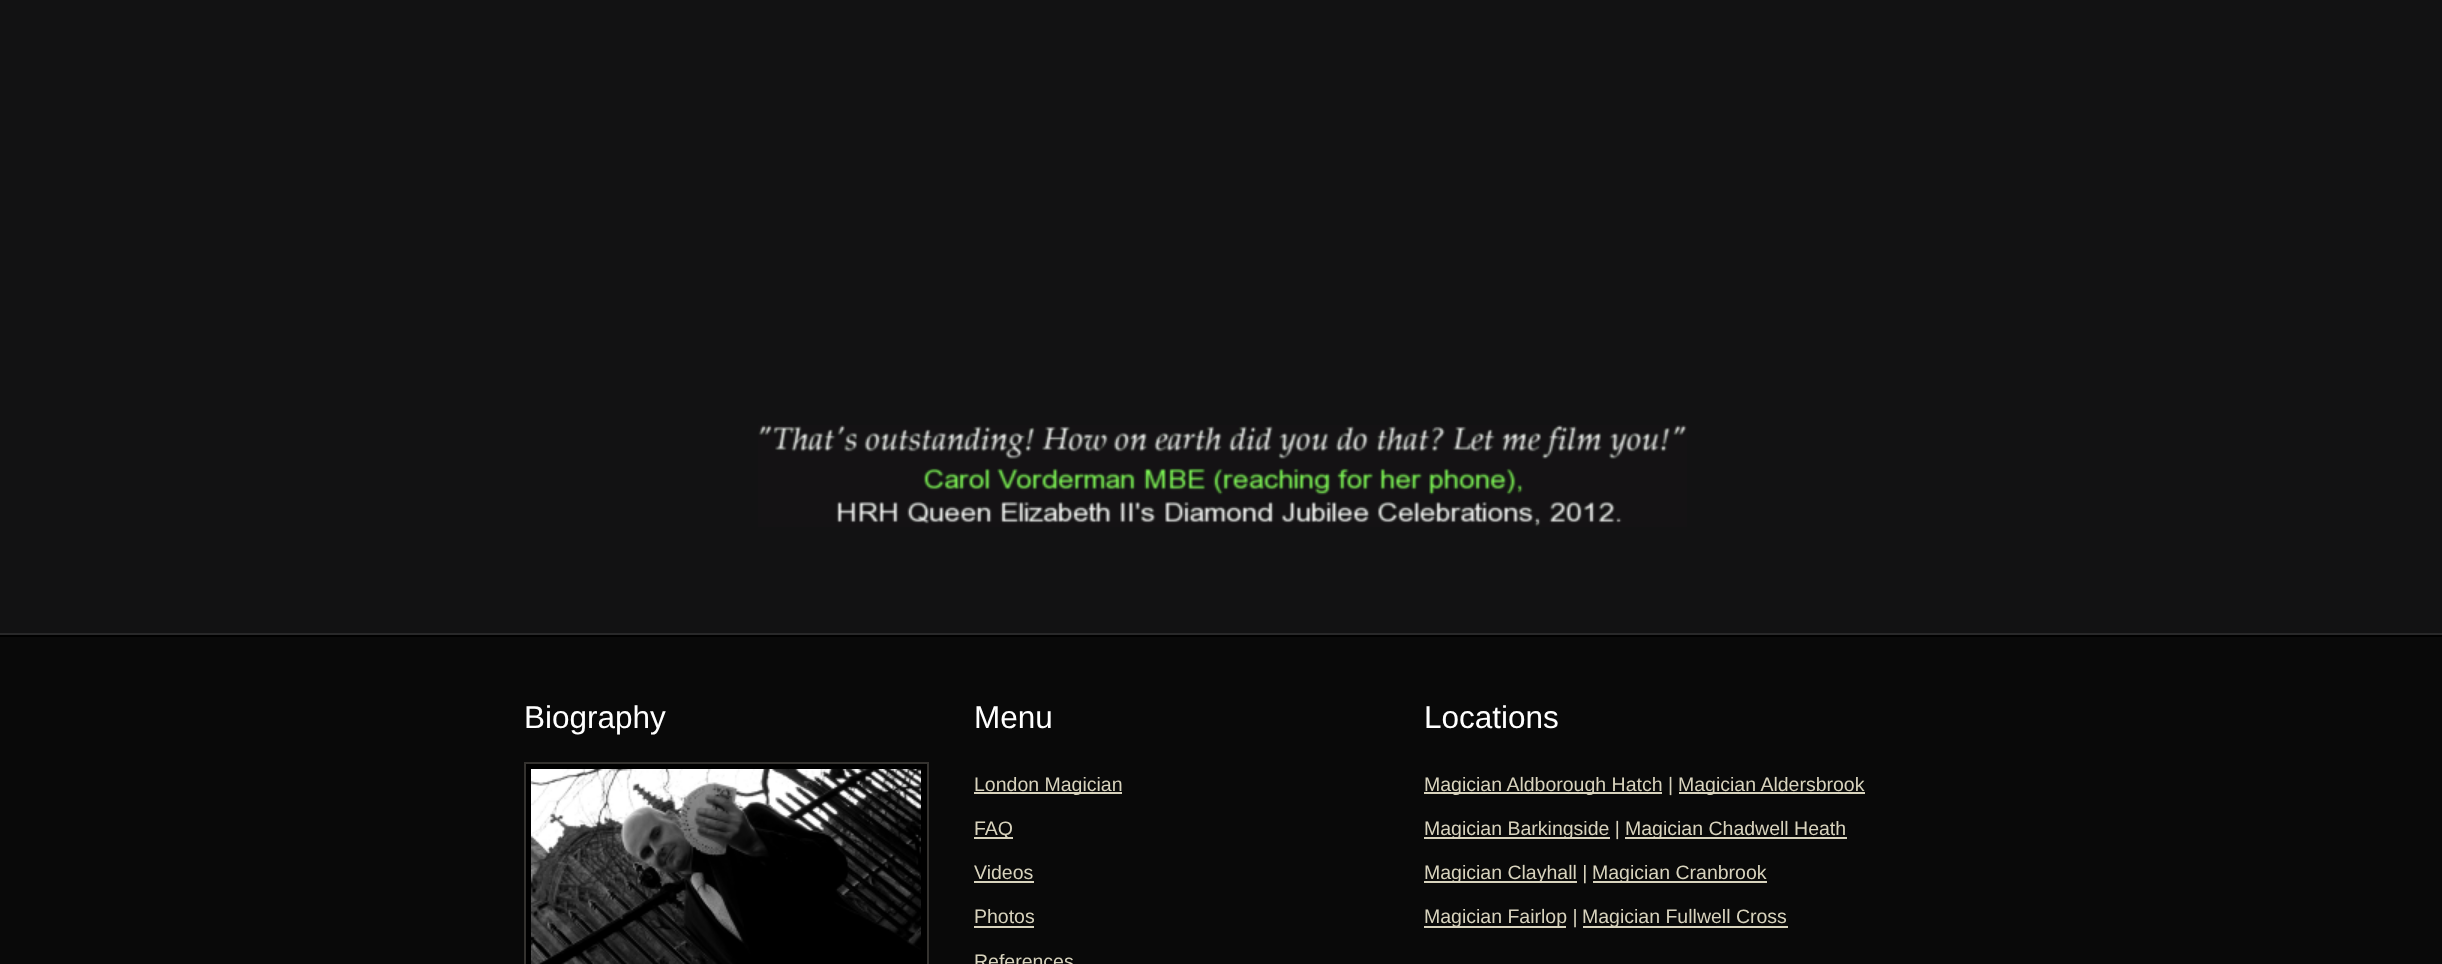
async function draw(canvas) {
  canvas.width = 2442;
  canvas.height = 964;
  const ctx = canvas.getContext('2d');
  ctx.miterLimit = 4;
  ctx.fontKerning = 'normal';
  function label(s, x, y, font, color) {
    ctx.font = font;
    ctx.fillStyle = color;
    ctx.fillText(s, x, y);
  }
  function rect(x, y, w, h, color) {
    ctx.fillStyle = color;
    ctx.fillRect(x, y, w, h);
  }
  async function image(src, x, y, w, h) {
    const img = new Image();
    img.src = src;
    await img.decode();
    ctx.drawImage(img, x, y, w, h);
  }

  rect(0, 0, 2442, 964, '#121213');
  rect(0, 633, 2442, 2, '#282829');
  await image('assets/img1.png', 758, 425, 929, 102);
  rect(0, 637, 2442, 327, '#090909');
  rect(0, 635, 2442, 2, '#000');
  label('Biography', 524, 728, '31.5px Liberation Sans', '#fff');
  ctx.fillStyle = '#000';
  ctx.beginPath();
  ctx.rect(525, 763, 403, 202);
  ctx.fill();
  ctx.strokeStyle = '#34322f';
  ctx.lineWidth = 2;
  ctx.stroke();
  await image('assets/img2.png', 531, 769, 390, 195);
  label('Menu', 974, 728, '31.5px Liberation Sans', '#fff');
  rect(974, 792, 148, 2, '#d8d3bd');
  label('London Magician', 974, 791, '19.5px Liberation Sans', '#d8d3bd');
  rect(974, 837, 39, 2, '#d8d3bd');
  label('FAQ', 974, 835, '19.5px Liberation Sans', '#d8d3bd');
  label('Videos', 974, 879, '19.5px Liberation Sans', '#d8d3bd');
  rect(974, 881, 60, 2, '#d8d3bd');
  label('Photos', 974, 923, '19.5px Liberation Sans', '#d8d3bd');
  rect(974, 926, 60, 2, '#d8d3bd');
  label('References', 974, 968, '19.5px Liberation Sans', '#d8d3bd');
  label('Locations', 1424, 728, '31.5px Liberation Sans', '#fff');
  rect(1424, 792, 238, 2, '#d8d3bd');
  label('Magician Aldborough Hatch |', 1424, 791, '19.5px Liberation Sans', '#d8d3bd');
  rect(1679, 792, 186, 2, '#d8d3bd');
  label('Magician Aldersbrook', 1678, 791, '19.5px Liberation Sans', '#d8d3bd');
  rect(1424, 837, 186, 2, '#d8d3bd');
  label('Magician Barkingside |', 1424, 835, '19.5px Liberation Sans', '#d8d3bd');
  rect(1625, 837, 222, 2, '#d8d3bd');
  label('Magician Chadwell Heath', 1625, 835, '19.5px Liberation Sans', '#d8d3bd');
  rect(1424, 881, 153, 2, '#d8d3bd');
  label('Magician Clayhall |', 1424, 879, '19.5px Liberation Sans', '#d8d3bd');
  rect(1593, 881, 174, 2, '#d8d3bd');
  label('Magician Cranbrook', 1592, 879, '19.5px Liberation Sans', '#d8d3bd');
  rect(1424, 926, 142, 2, '#d8d3bd');
  label('Magician Fairlop |', 1424, 923, '19.5px Liberation Sans', '#d8d3bd');
  rect(1583, 926, 205, 2, '#d8d3bd');
  label('Magician Fullwell Cross', 1582, 923, '19.5px Liberation Sans', '#d8d3bd');
}

draw(document.querySelector('canvas'));
